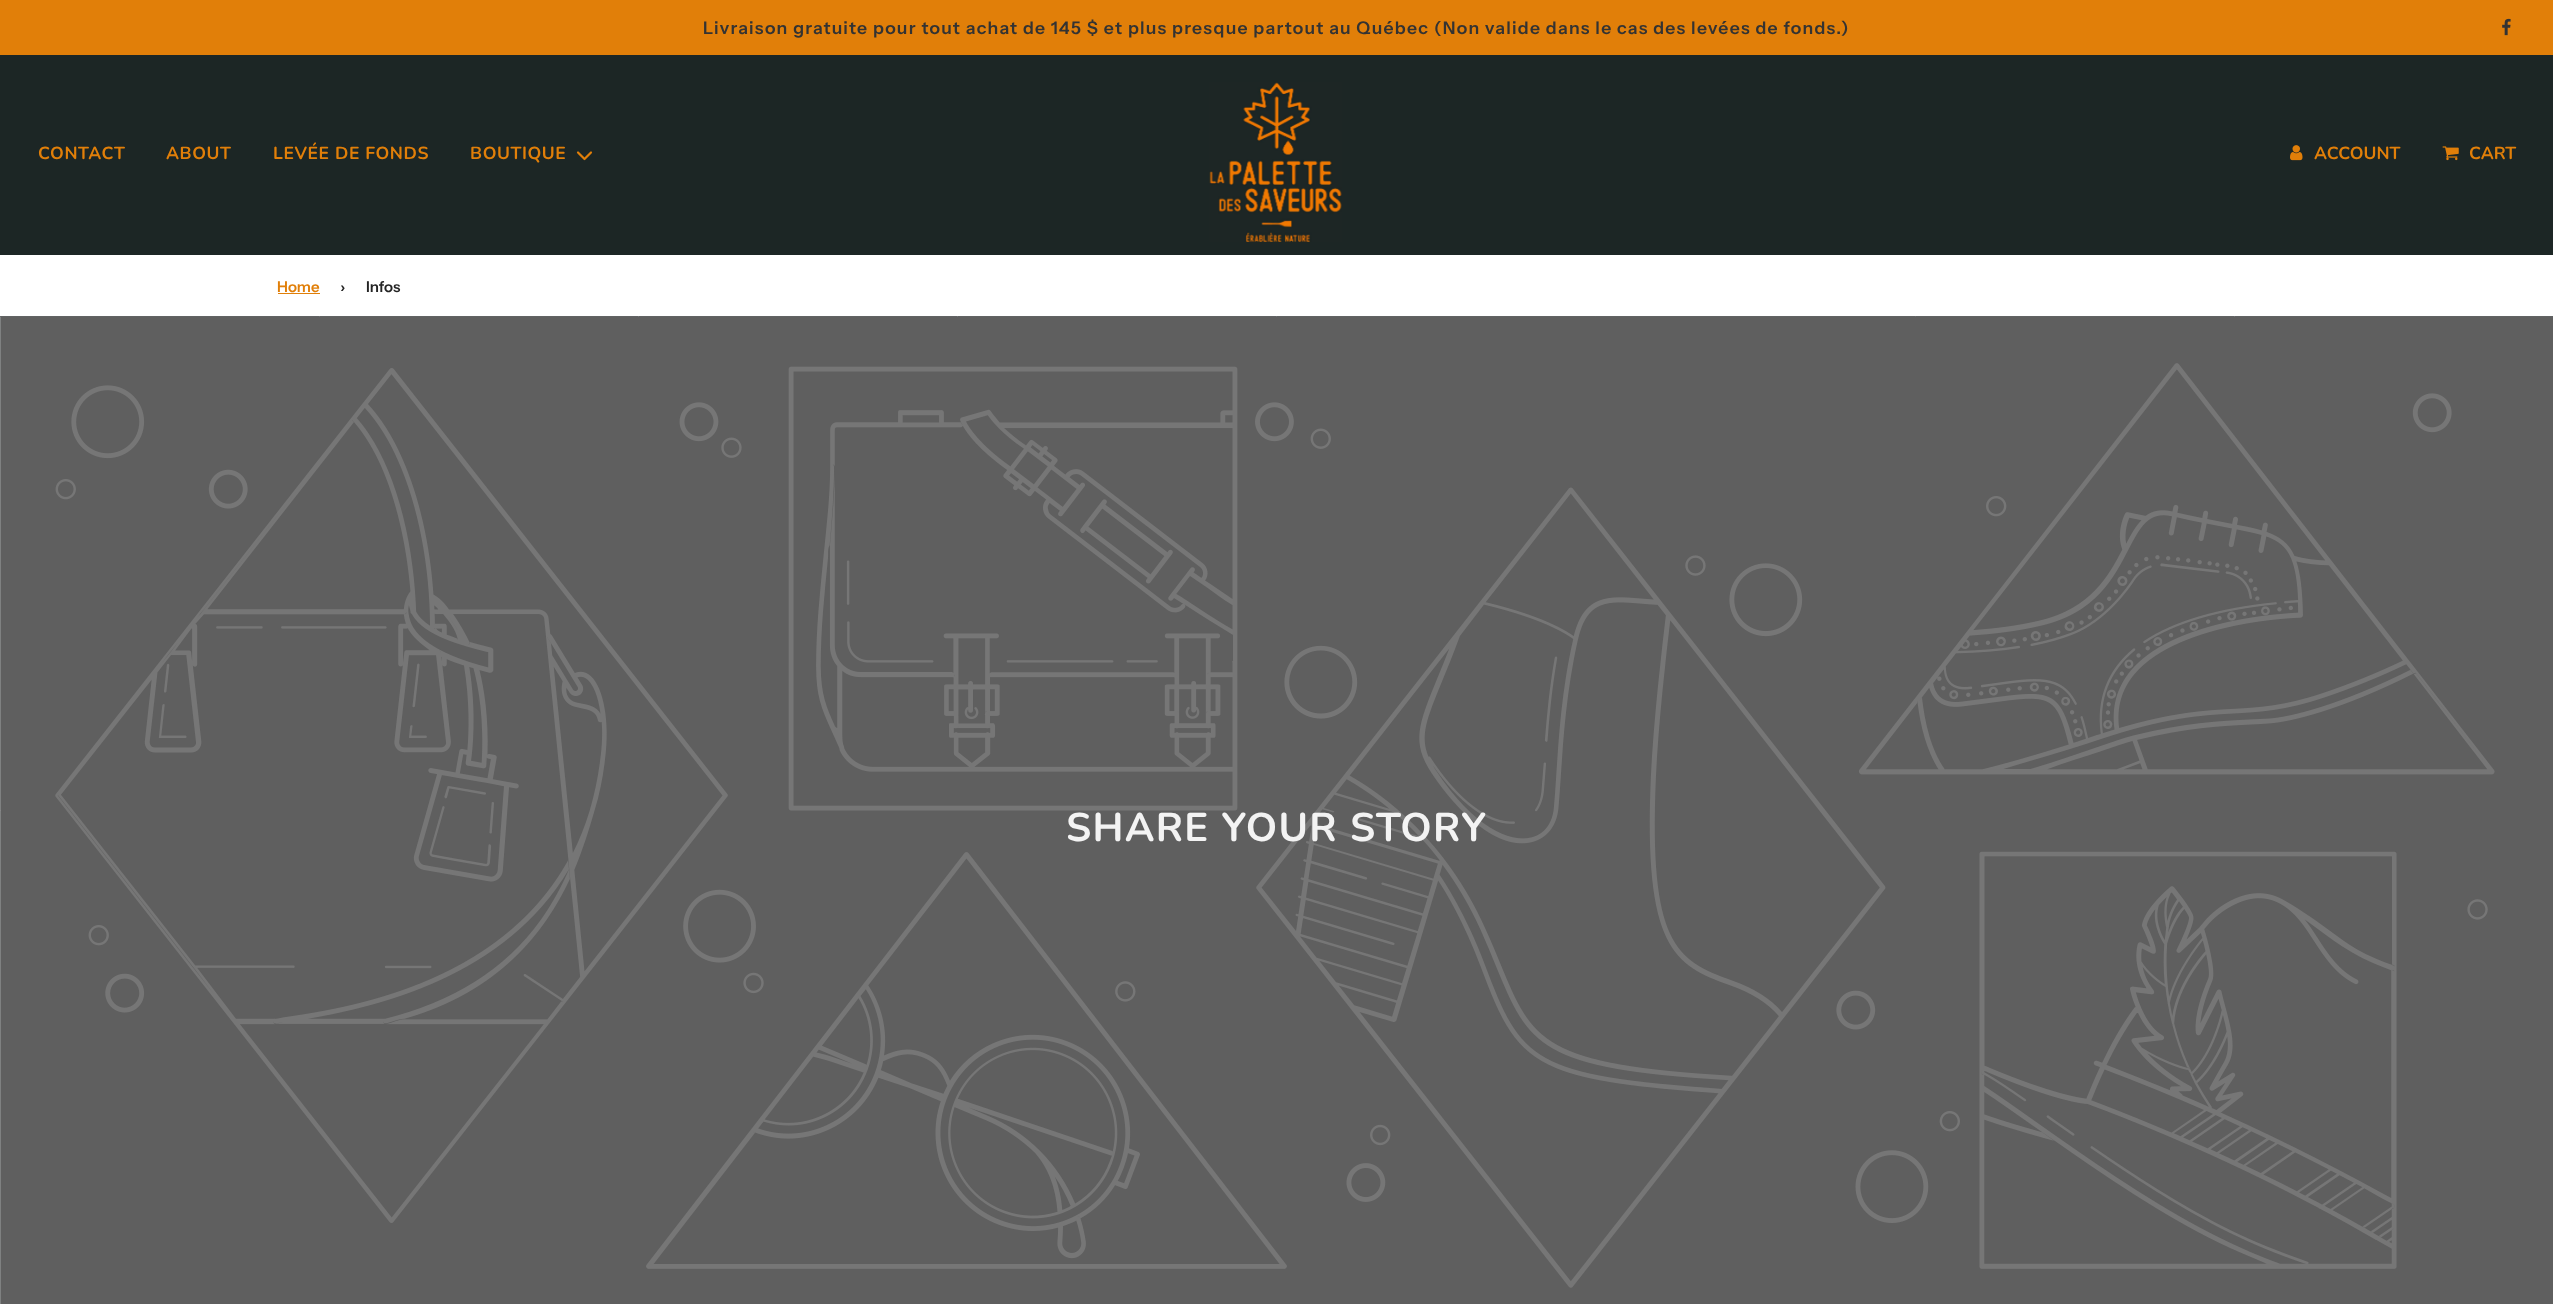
async function draw(canvas) {
  canvas.width = 2553;
  canvas.height = 1304;
  const ctx = canvas.getContext('2d');
  ctx.miterLimit = 4;
  ctx.fontKerning = 'normal';
  function label(s, x, y, font, color) {
    ctx.font = font;
    ctx.fillStyle = color;
    ctx.fillText(s, x, y);
  }
  function rect(x, y, w, h, color) {
    ctx.fillStyle = color;
    ctx.fillRect(x, y, w, h);
  }
  async function image(src, x, y, w, h) {
    const img = new Image();
    img.src = src;
    await img.decode();
    ctx.drawImage(img, x, y, w, h);
  }
  let path;

  rect(0, 0, 2553, 1304, '#fff');
  rect(0, 0, 2553, 55, '#e17f09');
  ctx.letterSpacing = '1.25px';
  label('Livraison gratuite pour tout achat de 145 $ et plus presque partout au Québec (Non valide dans le cas des levées de fonds.)', 703, 34, '600 17.5px Instrument Sans', '#333');
  await image('assets/img1.png', 2502, 18, 9, 18);
  rect(0, 55, 2553, 200, '#1c2625');
  ctx.letterSpacing = '0.6px';
  label('CONTACT', 38, 159, 'bold 17.5px Nunito', '#e17f09');
  label('ABOUT', 166, 159, 'bold 17.5px Nunito', '#e17f09');
  label('LEVÉE DE FONDS', 273, 159, 'bold 17.5px Nunito', '#e17f09');
  label('BOUTIQUE', 470, 159, 'bold 17.5px Nunito', '#e17f09');
  path = new Path2D('M578 152.5L584.5 159L591 152.5');
  ctx.strokeStyle = '#e17f09';
  ctx.lineWidth = 2.2;
  ctx.lineCap = 'round';
  ctx.lineJoin = 'round';
  ctx.stroke(path);
  await image('assets/img2.png', 1209, 82, 133, 160);
  await image('assets/img3.png', 2290, 145, 13, 16);
  ctx.letterSpacing = '0px';
  label('ACCOUNT', 2314, 159, 'bold 17.5px Nunito', '#e17f09');
  await image('assets/img4.png', 2442, 146, 17, 15);
  label('CART', 2469, 159, 'bold 17.5px Nunito', '#e17f09');
  label('Home', 277, 292, '600 15px Instrument Sans', '#e17f09');
  rect(278, 293, 42, 1, '#e17f09');
  label('›', 340, 292, '600 15px Instrument Sans', '#242424');
  label('Infos', 366, 292, '600 15px Instrument Sans', '#242424');
  ctx.fillStyle = '#5f5f5f';
  ctx.beginPath();
  ctx.rect(0.5, 316.5, 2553, 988);
  ctx.fill();
  ctx.strokeStyle = '#616364';
  ctx.lineWidth = 1;
  ctx.lineJoin = 'miter';
  ctx.stroke();
  await image('assets/img5.png', 55, 363, 2440, 925);
  ctx.letterSpacing = '1.25px';
  label('SHARE YOUR STORY', 1066, 841, 'bold 40px Nunito', '#f3f3f3');
}

draw(document.querySelector('canvas'));
